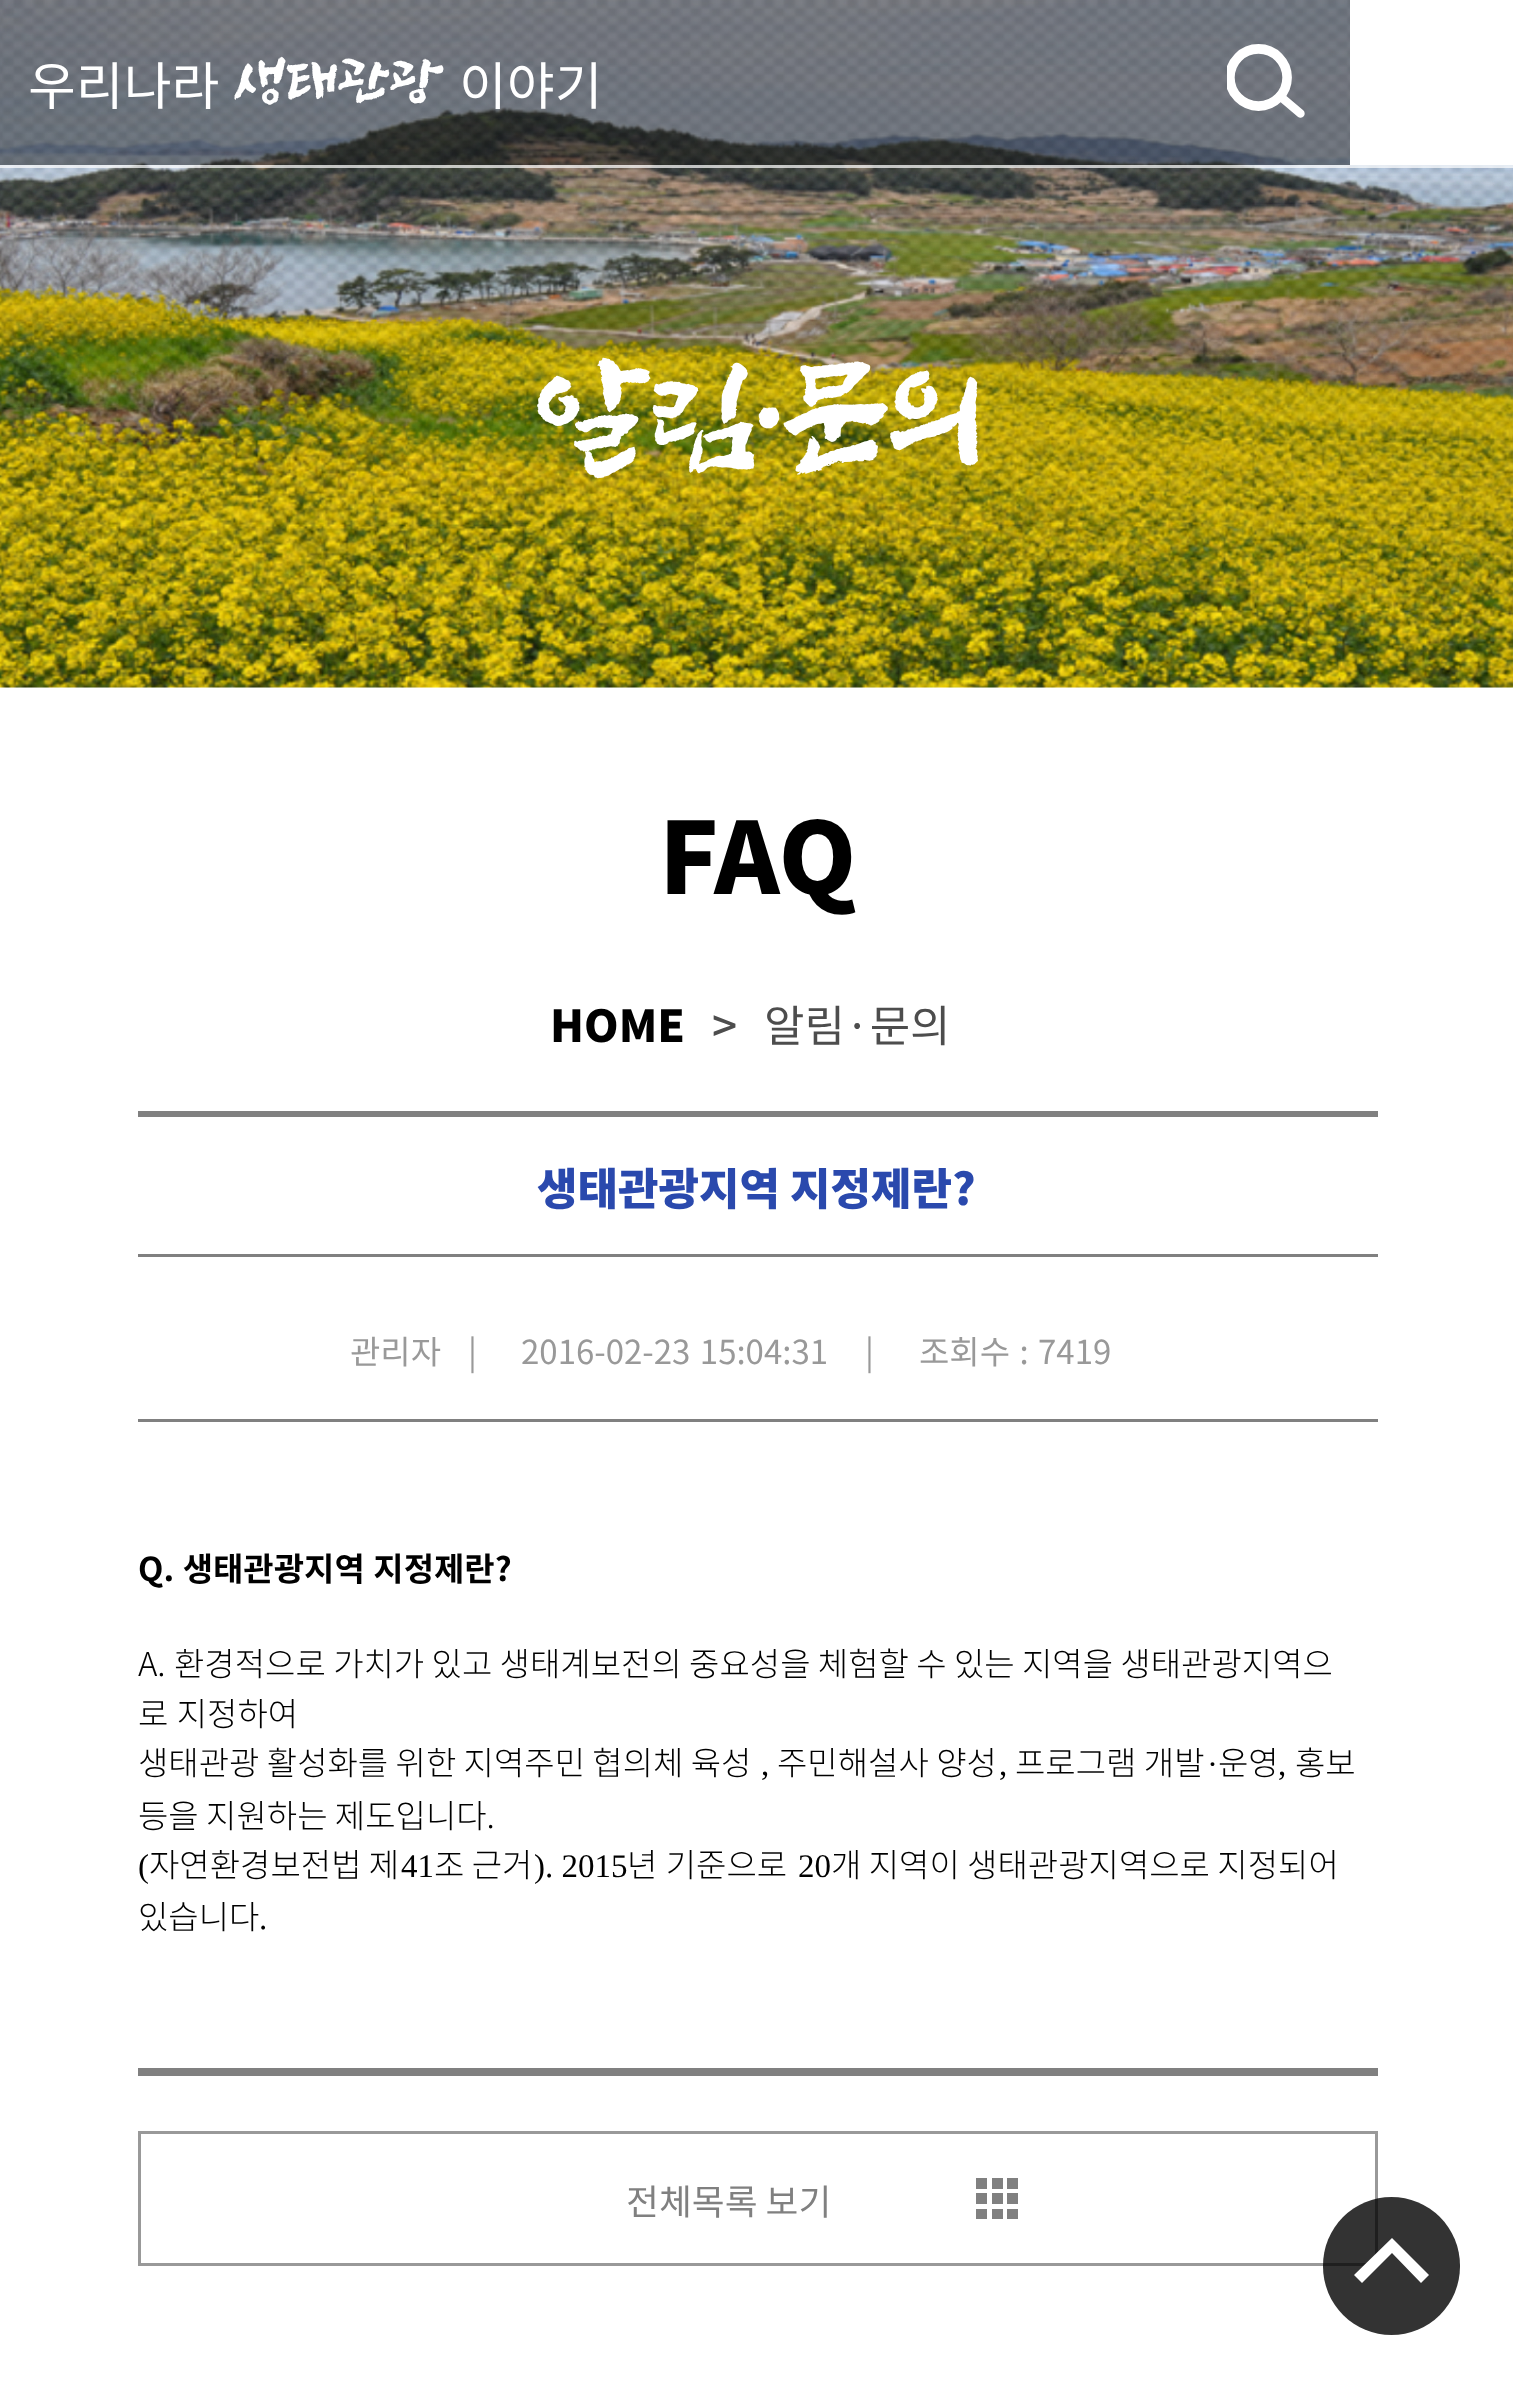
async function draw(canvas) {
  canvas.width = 1513;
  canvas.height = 2402;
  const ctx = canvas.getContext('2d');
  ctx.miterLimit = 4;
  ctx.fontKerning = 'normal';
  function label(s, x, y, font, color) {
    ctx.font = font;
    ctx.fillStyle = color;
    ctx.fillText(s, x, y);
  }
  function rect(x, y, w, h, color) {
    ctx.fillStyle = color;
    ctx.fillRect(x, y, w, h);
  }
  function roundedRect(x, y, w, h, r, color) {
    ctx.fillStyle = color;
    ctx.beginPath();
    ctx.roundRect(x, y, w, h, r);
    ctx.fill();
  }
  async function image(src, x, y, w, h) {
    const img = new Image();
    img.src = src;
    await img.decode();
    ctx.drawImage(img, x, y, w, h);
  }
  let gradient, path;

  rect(0, 0, 1513, 2402, '#fff');
  await image('assets/img1.png', 0, 0, 1513, 688);
  await image('assets/img2.png', 0, 0, 1513, 688);
  gradient = ctx.createLinearGradient(758, 0, 758, 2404);
  gradient.addColorStop(0, '#00000070');
  gradient.addColorStop(1, '#fff');
  ctx.fillStyle = gradient;
  ctx.fillRect(0, 0, 1350, 165);
  label('우리나라', 28, 105, '52px Noto Sans KR', '#fff');
  label('생태관광', 234, 105, '60.5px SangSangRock', '#fff');
  label('이야기', 459, 105, '52px Noto Sans KR', '#fff');
  ctx.save();
  ctx.beginPath();
  ctx.rect(1227, 44, 79, 77);
  ctx.clip();
  ctx.beginPath();
  ctx.arc(1258.5, 77.5, 32, 0, 2 * Math.PI);
  ctx.strokeStyle = '#fff';
  ctx.lineWidth = 2.8;
  ctx.stroke();
  ctx.beginPath();
  ctx.arc(1258.5, 77.5, 28, 0, 2 * Math.PI);
  ctx.lineWidth = 8.4;
  ctx.stroke();
  ctx.restore();
  path = new Path2D('M1281 97L1300.5 113.5');
  ctx.strokeStyle = '#fff';
  ctx.lineWidth = 8.4;
  ctx.lineCap = 'round';
  ctx.stroke(path);
  rect(1350, 0, 163, 165, '#fff');
  rect(0, 165, 1513, 3, '#ffffffb3');
  label('알림·문의', 536, 473, '137.5px SangSangRock', '#fff');
  label('FAQ', 659, 894, '900 99px Noto Sans KR', '#000');
  label('HOME', 550, 1042, '900 44px Noto Sans KR', '#000');
  label('>', 712, 1042, '500 44px Noto Sans KR', '#4d4d4d');
  label('알림·문의', 764, 1042, '44px Noto Sans KR', '#4d4d4d');
  rect(138, 1111, 1240, 6, '#808080');
  rect(138, 1254, 1240, 3, '#808080');
  label('생태관광지역 지정제란?', 537, 1205, '900 44px Noto Sans KR', '#2a49ad');
  rect(138, 1419, 1240, 3, '#808080');
  label('관리자', 350, 1364, '33px Noto Sans KR', '#999');
  label('|', 468, 1364, '33px Noto Sans KR', '#999');
  ctx.wordSpacing = '2px';
  label('2016-02-23 15:04:31', 521, 1364, '33px Noto Sans KR', '#999');
  ctx.wordSpacing = '0px';
  label('|', 865, 1364, '33px Noto Sans KR', '#999');
  ctx.wordSpacing = '2px';
  label('조회수 : 7419', 919, 1364, '33px Noto Sans KR', '#999');
  rect(138, 2068, 1240, 8, '#808080');
  ctx.wordSpacing = '1px';
  label('Q. 생태관광지역 지정제란?', 138, 1581, 'bold 33px Noto Sans KR', '#000');
  ctx.wordSpacing = '0px';
  label('A.', 138, 1676, '300 33px Noto Sans KR', '#000');
  label('환경적으로 가치가 있고 생태계보전의 중요성을 체험할 수 있는 지역을 생태관광지역으', 174, 1676, '300 33px Noto Sans KR', '#000');
  ctx.wordSpacing = '1px';
  label('로 지정하여', 138, 1726, '300 33px Noto Sans KR', '#000');
  ctx.wordSpacing = '0px';
  label('생태관광 활성화를 위한 지역주민 협의체 육성', 138, 1775, '300 33px Noto Sans KR', '#000');
  label('주민해설사 양성', 777, 1775, '300 33px Noto Sans KR', '#000');
  label('프로그램 개발', 1015, 1775, '300 33px Noto Sans KR', '#000');
  label('·', 1207, 1775, '33px Liberation Serif', '#000');
  label('운영', 1218, 1775, '300 33px Noto Sans KR', '#000');
  label('홍보', 1295, 1775, '300 33px Noto Sans KR', '#000');
  label(',', 761, 1775, '33px Liberation Serif', '#000');
  label(',', 999, 1775, '33px Liberation Serif', '#000');
  label(',', 1278, 1775, '33px Liberation Serif', '#000');
  label('등을 지원하는 제도입니다.', 138, 1828, '300 33px Noto Sans KR', '#000');
  label('(', 138, 1877, '33px Liberation Serif', '#000');
  label('자연환경보전법 제', 149, 1877, '300 33px Noto Sans KR', '#000');
  label('41', 401, 1877, '33px Liberation Serif', '#000');
  label('조 근거', 434, 1877, '300 33px Noto Sans KR', '#000');
  label('). 2015', 534, 1877, '33px Liberation Serif', '#000');
  ctx.wordSpacing = '1px';
  label('년 기준으로', 627, 1877, '300 33px Noto Sans KR', '#000');
  ctx.wordSpacing = '0px';
  label('20', 798, 1877, '33px Liberation Serif', '#000');
  label('개 지역이 생태관광지역으로 지정되어', 831, 1877, '300 33px Noto Sans KR', '#000');
  label('있습니다', 138, 1929, '300 33px Noto Sans KR', '#000');
  label('.', 259, 1929, '33px Liberation Serif', '#000');
  await image('assets/img3.png', 976, 2178, 42, 41);
  ctx.strokeStyle = '#999';
  ctx.lineWidth = 3;
  ctx.strokeRect(139.5, 2132.5, 1237, 132);
  label('전체목록 보기', 626, 2215, '35.75px Noto Sans KR', '#808080');
  roundedRect(1323, 2197, 137, 138, 68.5, '#000000cc');
  ctx.fillStyle = '#fff';
  path = new Path2D('M1429 2275L1392 2238L1354 2275L1362 2283L1392 2253L1421 2283Z');
  ctx.fill(path);
}

draw(document.querySelector('canvas'));
